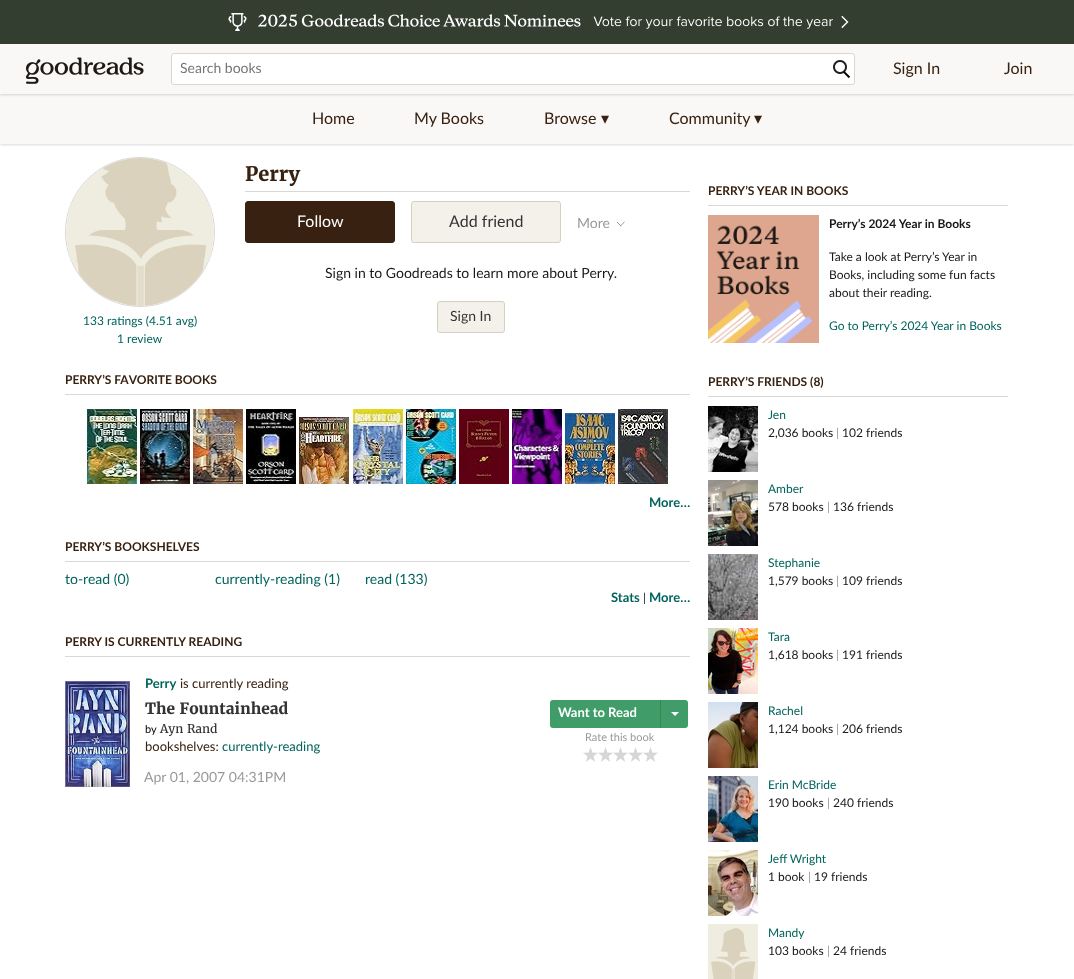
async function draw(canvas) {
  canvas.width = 1074;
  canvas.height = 979;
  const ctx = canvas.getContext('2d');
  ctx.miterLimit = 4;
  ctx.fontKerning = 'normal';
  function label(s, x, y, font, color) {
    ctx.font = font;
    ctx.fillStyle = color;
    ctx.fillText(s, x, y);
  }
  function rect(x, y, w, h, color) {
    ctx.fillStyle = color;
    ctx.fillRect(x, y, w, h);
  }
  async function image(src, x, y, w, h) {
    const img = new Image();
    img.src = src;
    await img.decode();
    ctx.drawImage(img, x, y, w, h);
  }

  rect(0, 0, 1074, 979, '#fff');
  rect(0, 0, 1074, 44, '#333d30');
  await image('assets/img1.png', 225, 8, 624, 24);
  ctx.fillStyle = '#00000026';
  ctx.filter = 'blur(1px)';
  ctx.beginPath();
  ctx.rect(0, 95, 1074, 50);
  ctx.fill();
  ctx.filter = 'none';
  rect(0, 94, 1074, 50, '#faf8f6');
  ctx.fillStyle = '#00000026';
  ctx.filter = 'blur(1px)';
  ctx.beginPath();
  ctx.rect(0, 45, 1074, 50);
  ctx.fill();
  ctx.filter = 'none';
  rect(0, 44, 1074, 50, '#faf8f6');
  await image('assets/img2.png', 26, 57, 118, 27);
  ctx.fillStyle = '#fff';
  ctx.beginPath();
  ctx.roundRect(171.5, 53.5, 683, 31, 2.5);
  ctx.fill();
  ctx.strokeStyle = '#dcd6cc';
  ctx.stroke();
  label('Search books', 180, 73, '14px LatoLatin', '#767676');
  await image('assets/img3.png', 833, 60, 18, 19);
  label('Sign In', 893, 74, '16px LatoLatin', '#382110');
  label('Join', 1004, 74, '16px LatoLatin', '#382110');
  label('Home', 312, 124, '16px LatoLatin', '#382110');
  label('My Books', 414, 124, '16px LatoLatin', '#382110');
  label('Browse', 544, 124, '16px LatoLatin', '#382110');
  label('▾', 601, 124, '16px DejaVu Sans', '#382110');
  label('Community', 669, 124, '16px LatoLatin', '#382110');
  label('▾', 754, 124, '16px DejaVu Sans', '#382110');
  rect(245, 191, 445, 1, '#d8d8d8');
  label('Perry', 245, 181, 'bold 20px Merriweather', '#382110');
  ctx.beginPath();
  ctx.roundRect(245.5, 201.5, 149, 41, 2.5);
  ctx.fill();
  ctx.strokeStyle = '#382110';
  ctx.stroke();
  label('Follow', 297, 227, '16px LatoLatin', '#fff');
  ctx.fillStyle = '#f4f1ea';
  ctx.beginPath();
  ctx.roundRect(411.5, 201.5, 149, 41, 2.5);
  ctx.fill();
  ctx.strokeStyle = '#d6d0c4';
  ctx.stroke();
  label('Add friend', 449, 227, '16px LatoLatin', '#333');
  label('More', 577, 228, '14px LatoLatin', '#999');
  await image('assets/img4.png', 616, 221, 9, 6);
  label('Sign in to Goodreads to learn more about Perry.', 325, 278, '14px LatoLatin', '#181818');
  ctx.fillStyle = '#f4f1ea';
  ctx.beginPath();
  ctx.roundRect(437.5, 301.5, 67, 31, 2.5);
  ctx.fill();
  ctx.stroke();
  label('Sign In', 450, 321, '14px LatoLatin', '#333');
  ctx.beginPath();
  ctx.arc(140, 232, 74.5, 0, 2 * Math.PI);
  ctx.strokeStyle = '#d8d8d8';
  ctx.stroke();
  await image('assets/img5.png', 66, 158, 148, 148);
  label('133 ratings (4.51 avg)', 83, 325, '12px LatoLatin', '#00635d');
  label('1 review', 117, 343, '12px LatoLatin', '#00635d');
  rect(65, 394, 625, 1, '#d8d8d8');
  label('PERRY’S FAVORITE BOOKS', 65, 384, 'bold 12px LatoLatin', '#382110');
  await image('assets/img6.png', 87, 409, 50, 75);
  await image('assets/img7.png', 140, 409, 50, 75);
  await image('assets/img8.png', 193, 409, 50, 75);
  await image('assets/img9.png', 246, 409, 50, 75);
  await image('assets/img10.png', 299, 417, 50, 67);
  await image('assets/img11.png', 353, 409, 50, 75);
  await image('assets/img12.png', 406, 409, 50, 75);
  await image('assets/img13.png', 459, 409, 50, 75);
  await image('assets/img14.png', 512, 409, 50, 75);
  await image('assets/img15.png', 565, 413, 50, 71);
  await image('assets/img16.png', 618, 409, 50, 75);
  label('More…', 649, 507, 'bold 13px LatoLatin', '#00635d');
  rect(65, 561, 625, 1, '#d8d8d8');
  label('PERRY’S BOOKSHELVES', 65, 551, 'bold 12px LatoLatin', '#382110');
  label('to-read (0)', 65, 584, '14px LatoLatin', '#00635d');
  label('currently-reading (1)', 215, 584, '14px LatoLatin', '#00635d');
  label('read (133)', 365, 584, '14px LatoLatin', '#00635d');
  label('Stats', 611, 602, 'bold 13px LatoLatin', '#00635d');
  label('|', 643, 602, '12px LatoLatin', '#181818');
  label('More…', 649, 602, 'bold 13px LatoLatin', '#00635d');
  rect(65, 656, 625, 1, '#d8d8d8');
  label('PERRY IS CURRENTLY READING', 65, 646, 'bold 12px LatoLatin', '#382110');
  await image('assets/img17.png', 65, 681, 65, 106);
  label('Perry', 145, 688, 'bold 13px LatoLatin', '#00635d');
  label('is currently reading', 180, 688, '13px LatoLatin', '#382110');
  label('The Fountainhead', 145, 714, 'bold 15.5px Merriweather', '#333');
  label('by', 145, 733, '11px LatoLatin', '#000');
  label('Ayn Rand', 160, 733, '12px Merriweather', '#333');
  label('bookshelves:', 145, 751, '13px LatoLatin', '#382110');
  label('currently-reading', 222, 751, '13px LatoLatin', '#00635d');
  ctx.fillStyle = '#409d69';
  ctx.beginPath();
  ctx.roundRect(550, 700, 110, 28, [3, 0, 0, 3]);
  ctx.fill();
  label('Want to Read', 558, 717, 'bold 13px LatoLatin', '#fff');
  ctx.fillStyle = '#409d69';
  ctx.beginPath();
  ctx.roundRect(660, 700, 28, 28, [0, 3, 3, 0]);
  ctx.fill();
  rect(660, 700, 1, 28, '#38883d');
  await image('assets/img18.png', 671, 712, 8, 4);
  label('Rate this book', 585, 741, '11px LatoLatin', '#999');
  await image('assets/img19.png', 583, 747, 15, 15);
  await image('assets/img19.png', 598, 747, 15, 15);
  await image('assets/img19.png', 613, 747, 15, 15);
  await image('assets/img19.png', 628, 747, 15, 15);
  await image('assets/img19.png', 643, 747, 15, 15);
  label('Apr 01, 2007 04:31PM', 144, 782, '14px LatoLatin', '#999');
  rect(708, 205, 300, 1, '#d8d8d8');
  label('PERRY’S YEAR IN BOOKS', 708, 195, 'bold 12px LatoLatin', '#382110');
  await image('assets/img20.png', 708, 215, 111, 128);
  label('Perry’s 2024 Year in Books', 829, 228, 'bold 12px LatoLatin', '#181818');
  label('Take a look at Perry’s Year in', 829, 261, '12px LatoLatin', '#181818');
  label('Books, including some fun facts', 829, 279, '12px LatoLatin', '#181818');
  label('about their reading.', 829, 297, '12px LatoLatin', '#181818');
  label('Go to Perry’s 2024 Year in Books', 829, 330, '12px LatoLatin', '#00635d');
  rect(708, 396, 300, 1, '#d8d8d8');
  label('PERRY’S FRIENDS (8)', 708, 386, 'bold 12px LatoLatin', '#382110');
  await image('assets/img21.png', 708, 406, 50, 66);
  label('Jen', 768, 419, '12px LatoLatin', '#00635d');
  label('2,036 books', 768, 437, '12px LatoLatin', '#181818');
  label('|', 836, 437, '12px LatoLatin', '#999');
  label('102 friends', 842, 437, '12px LatoLatin', '#181818');
  await image('assets/img22.png', 708, 480, 50, 66);
  label('Amber', 768, 493, '12px LatoLatin', '#00635d');
  label('578 books', 768, 511, '12px LatoLatin', '#181818');
  label('|', 827, 511, '12px LatoLatin', '#999');
  label('136 friends', 833, 511, '12px LatoLatin', '#181818');
  await image('assets/img23.png', 708, 554, 50, 66);
  label('Stephanie', 768, 567, '12px LatoLatin', '#00635d');
  label('1,579 books', 768, 585, '12px LatoLatin', '#181818');
  label('|', 836, 585, '12px LatoLatin', '#999');
  label('109 friends', 842, 585, '12px LatoLatin', '#181818');
  await image('assets/img24.png', 708, 628, 50, 66);
  label('Tara', 768, 641, '12px LatoLatin', '#00635d');
  label('1,618 books', 768, 659, '12px LatoLatin', '#181818');
  label('|', 836, 659, '12px LatoLatin', '#999');
  label('191 friends', 842, 659, '12px LatoLatin', '#181818');
  await image('assets/img25.png', 708, 702, 50, 66);
  label('Rachel', 768, 715, '12px LatoLatin', '#00635d');
  label('1,124 books', 768, 733, '12px LatoLatin', '#181818');
  label('|', 836, 733, '12px LatoLatin', '#999');
  label('206 friends', 842, 733, '12px LatoLatin', '#181818');
  await image('assets/img26.png', 708, 776, 50, 66);
  label('Erin McBride', 768, 789, '12px LatoLatin', '#00635d');
  label('190 books', 768, 807, '12px LatoLatin', '#181818');
  label('|', 827, 807, '12px LatoLatin', '#999');
  label('240 friends', 833, 807, '12px LatoLatin', '#181818');
  await image('assets/img27.png', 708, 850, 50, 66);
  label('Jeff Wright', 768, 863, '12px LatoLatin', '#00635d');
  label('1 book', 768, 881, '12px LatoLatin', '#181818');
  label('|', 808, 881, '12px LatoLatin', '#999');
  label('19 friends', 814, 881, '12px LatoLatin', '#181818');
  await image('assets/img28.png', 708, 924, 50, 55);
  label('Mandy', 768, 937, '12px LatoLatin', '#00635d');
  label('103 books', 768, 955, '12px LatoLatin', '#181818');
  label('|', 827, 955, '12px LatoLatin', '#999');
  label('24 friends', 833, 955, '12px LatoLatin', '#181818');
}

draw(document.querySelector('canvas'));
